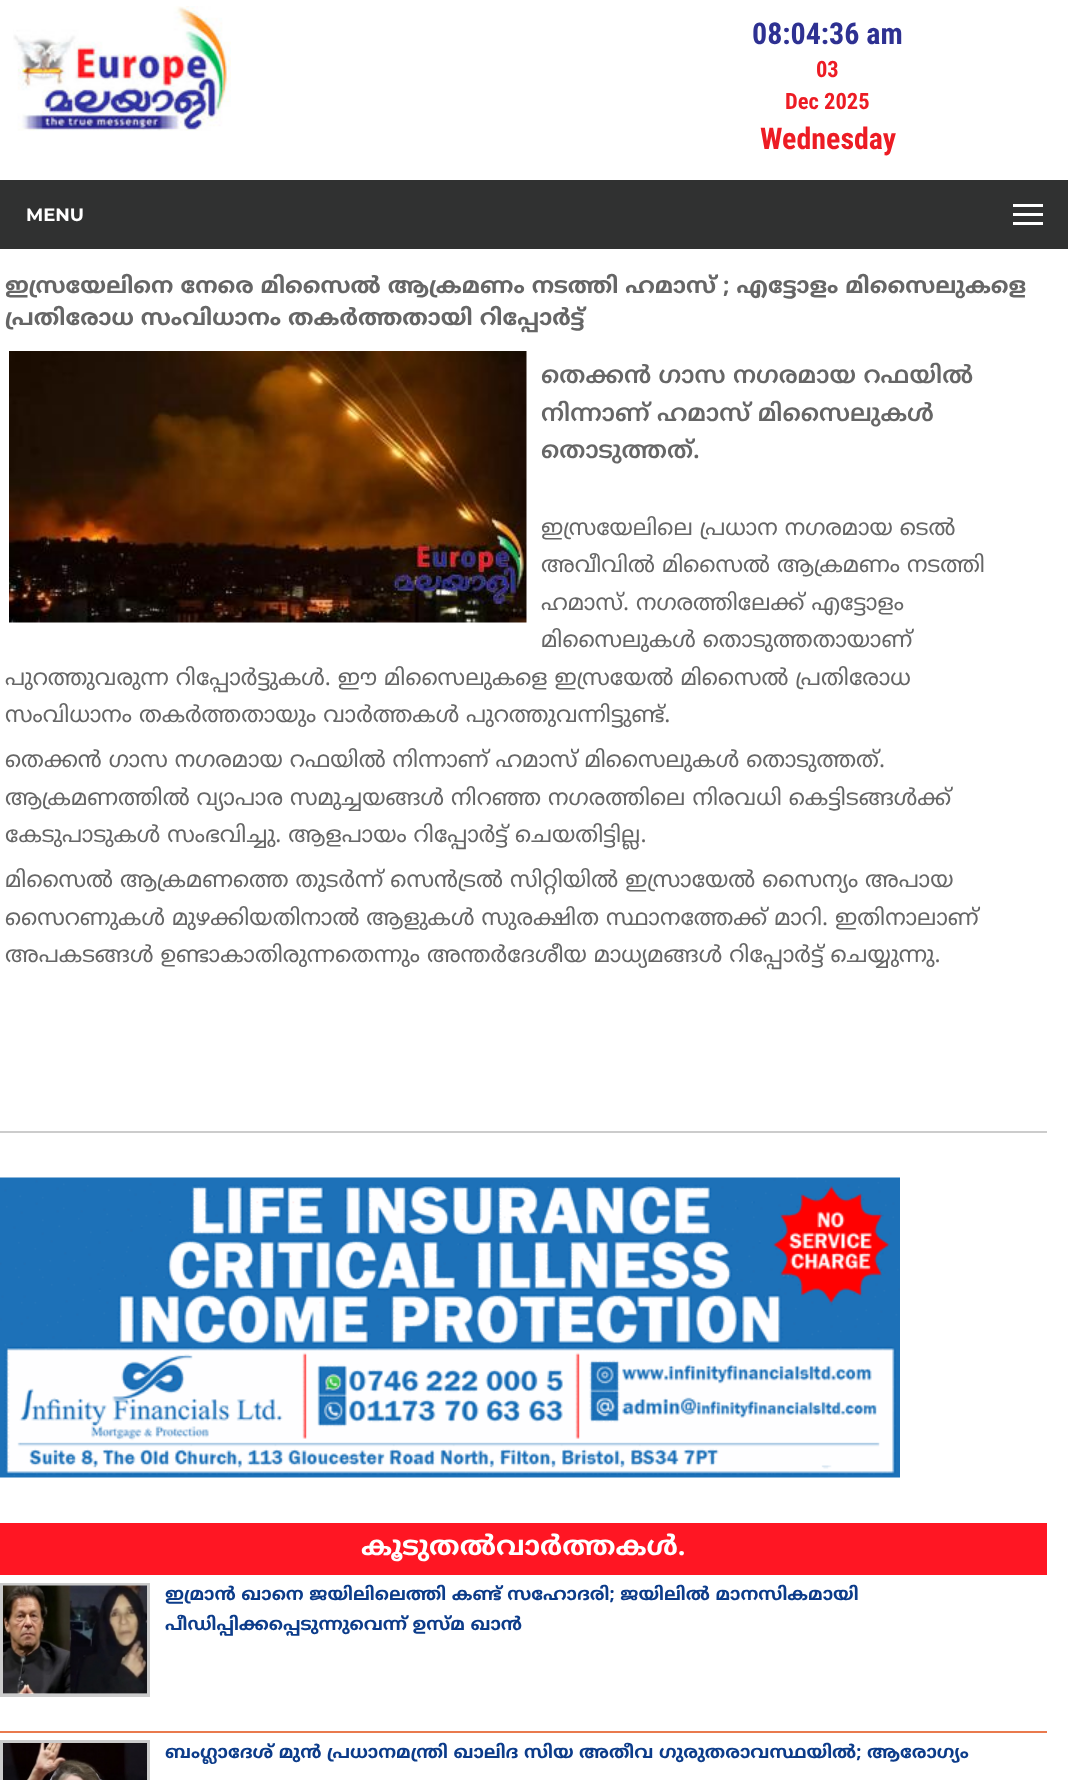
async function draw(canvas) {
  canvas.width = 1068;
  canvas.height = 1780;
  const ctx = canvas.getContext('2d');
  ctx.miterLimit = 4;
  ctx.fontKerning = 'normal';
  function label(s, x, y, font, color) {
    ctx.font = font;
    ctx.fillStyle = color;
    ctx.fillText(s, x, y);
  }
  function rect(x, y, w, h, color) {
    ctx.fillStyle = color;
    ctx.fillRect(x, y, w, h);
  }
  async function image(src, x, y, w, h) {
    const img = new Image();
    img.src = src;
    await img.decode();
    ctx.drawImage(img, x, y, w, h);
  }

  rect(0, 0, 1068, 1780, '#fff');
  await image('assets/img1.png', 13, 6, 218, 125);
  label('08:04:36 am', 752, 44, 'bold 30px Roboto Condensed', '#2e3192');
  label('03', 816, 77, 'bold 22.5px Roboto Condensed', '#ed1c24');
  label('Dec 2025', 785, 109, 'bold 22.5px Roboto Condensed', '#ed1c24');
  label('Wednesday', 760, 149, 'bold 30px Roboto Condensed', '#ed1c24');
  rect(0, 180, 1068, 69, '#303131');
  rect(1013, 204, 30, 3, '#fff');
  label('MENU', 26, 221, 'bold 18px Montserrat', '#fff');
  rect(1013, 213, 30, 3, '#fff');
  rect(1013, 222, 30, 3, '#fff');
  rect(0, 1131, 1047, 2, '#ccc');
  label('ഇസ്രയേലിനെ നേരെ മിസൈല്‍ ആക്രമണം നടത്തി ഹമാസ് ; എട്ടോളം മിസൈലുകളെ', 5, 293, 'bold 22.5px Noto Sans Malayalam', '#666');
  label('പ്രതിരോധ സംവിധാനം തകര്‍ത്തതായി റിപ്പോര്‍ട്ട്', 5, 325, 'bold 22.5px Noto Sans Malayalam', '#666');
  await image('assets/img2.png', 9, 351, 518, 272);
  label('തെക്കന്‍ ഗാസ നഗരമായ റഫയില്‍', 541, 383, '600 24px Noto Sans Malayalam', '#666');
  label('നിന്നാണ് ഹമാസ് മിസൈലുകള്‍', 541, 421, '600 24px Noto Sans Malayalam', '#666');
  label('തൊടുത്തത്.', 541, 458, '600 24px Noto Sans Malayalam', '#666');
  label('ഇസ്രയേലിലെ പ്രധാന നഗരമായ ടെല്‍', 541, 535, '22.5px Noto Sans Malayalam', '#666');
  label('അവീവില്‍ മിസൈല്‍ ആക്രമണം നടത്തി', 541, 572, '22.5px Noto Sans Malayalam', '#666');
  label('ഹമാസ്. നഗരത്തിലേക്ക് എട്ടോളം', 541, 610, '22.5px Noto Sans Malayalam', '#666');
  label('മിസൈലുകള്‍ തൊടുത്തതായാണ്', 541, 647, '22.5px Noto Sans Malayalam', '#666');
  label('പുറത്തുവരുന്ന റിപ്പോര്‍ട്ടുകള്‍. ഈ മിസൈലുകളെ ഇസ്രയേല്‍ മിസൈല്‍ പ്രതിരോധ', 5, 685, '22.5px Noto Sans Malayalam', '#666');
  label('സംവിധാനം തകര്‍ത്തതായും വാര്‍ത്തകള്‍ പുറത്തുവന്നിട്ടുണ്ട്.', 5, 722, '22.5px Noto Sans Malayalam', '#666');
  label('തെക്കന്‍ ഗാസ നഗരമായ റഫയില്‍ നിന്നാണ് ഹമാസ് മിസൈലുകള്‍ തൊടുത്തത്.', 5, 767, '22.5px Noto Sans Malayalam', '#666');
  label('ആക്രമണത്തില്‍ വ്യാപാര സമുച്ചയങ്ങള്‍ നിറഞ്ഞ നഗരത്തിലെ നിരവധി കെട്ടിടങ്ങള്‍ക്ക്', 5, 805, '22.5px Noto Sans Malayalam', '#666');
  label('കേടുപാടുകള്‍ സംഭവിച്ചു. ആളപായം റിപ്പോര്‍ട്ട് ചെയതിട്ടില്ല.', 5, 842, '22.5px Noto Sans Malayalam', '#666');
  label('മിസൈല്‍ ആക്രമണത്തെ തുടര്‍ന്ന് സെന്‍ട്രല്‍ സിറ്റിയില്‍ ഇസ്രായേല്‍ സൈന്യം അപായ', 5, 887, '22.5px Noto Sans Malayalam', '#666');
  label('സൈറണുകള്‍ മുഴക്കിയതിനാല്‍ ആളുകള്‍ സുരക്ഷിത സ്ഥാനത്തേക്ക് മാറി. ഇതിനാലാണ്', 5, 925, '22.5px Noto Sans Malayalam', '#666');
  label('അപകടങ്ങള്‍ ഉണ്ടാകാതിരുന്നതെന്നും അന്തര്‍ദേശീയ മാധ്യമങ്ങള്‍ റിപ്പോര്‍ട്ട് ചെയ്യുന്നു.', 5, 962, '22.5px Noto Sans Malayalam', '#666');
  await image('assets/img3.png', 0, 1177, 900, 301);
  rect(0, 1523, 1047, 52, '#ff1623');
  label('കൂടുതല്‍വാര്‍ത്തകള്‍.', 361, 1555, 'bold 27px Noto Sans Malayalam', '#fff');
  rect(0, 1731, 1047, 2, '#e97a4e');
  ctx.strokeStyle = '#ccc';
  ctx.lineWidth = 3;
  ctx.strokeRect(1.5, 1584.5, 147, 111);
  await image('assets/img4.png', 3, 1585, 144, 109);
  label('ഇമ്രാന്‍ ഖാനെ ജയിലിലെത്തി കണ്ട് സഹോദരി; ജയിലില്‍ മാനസികമായി', 165, 1600, 'bold 18px Noto Sans Malayalam', '#0c3c8a');
  label('പീഡിപ്പിക്കപ്പെടുന്നുവെന്ന് ഉസ്മ ഖാന്‍', 165, 1630, 'bold 18px Noto Sans Malayalam', '#0c3c8a');
  ctx.strokeRect(1.5, 1741.5, 147, 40);
  await image('assets/img5.png', 3, 1743, 144, 37);
  label('ബംഗ്ലാദേശ് മുന്‍ പ്രധാനമന്ത്രി ഖാലിദ സിയ അതീവ ഗുരുതരാവസ്ഥയില്‍; ആരോഗ്യം', 165, 1758, 'bold 18px Noto Sans Malayalam', '#0c3c8a');
}

draw(document.querySelector('canvas'));
